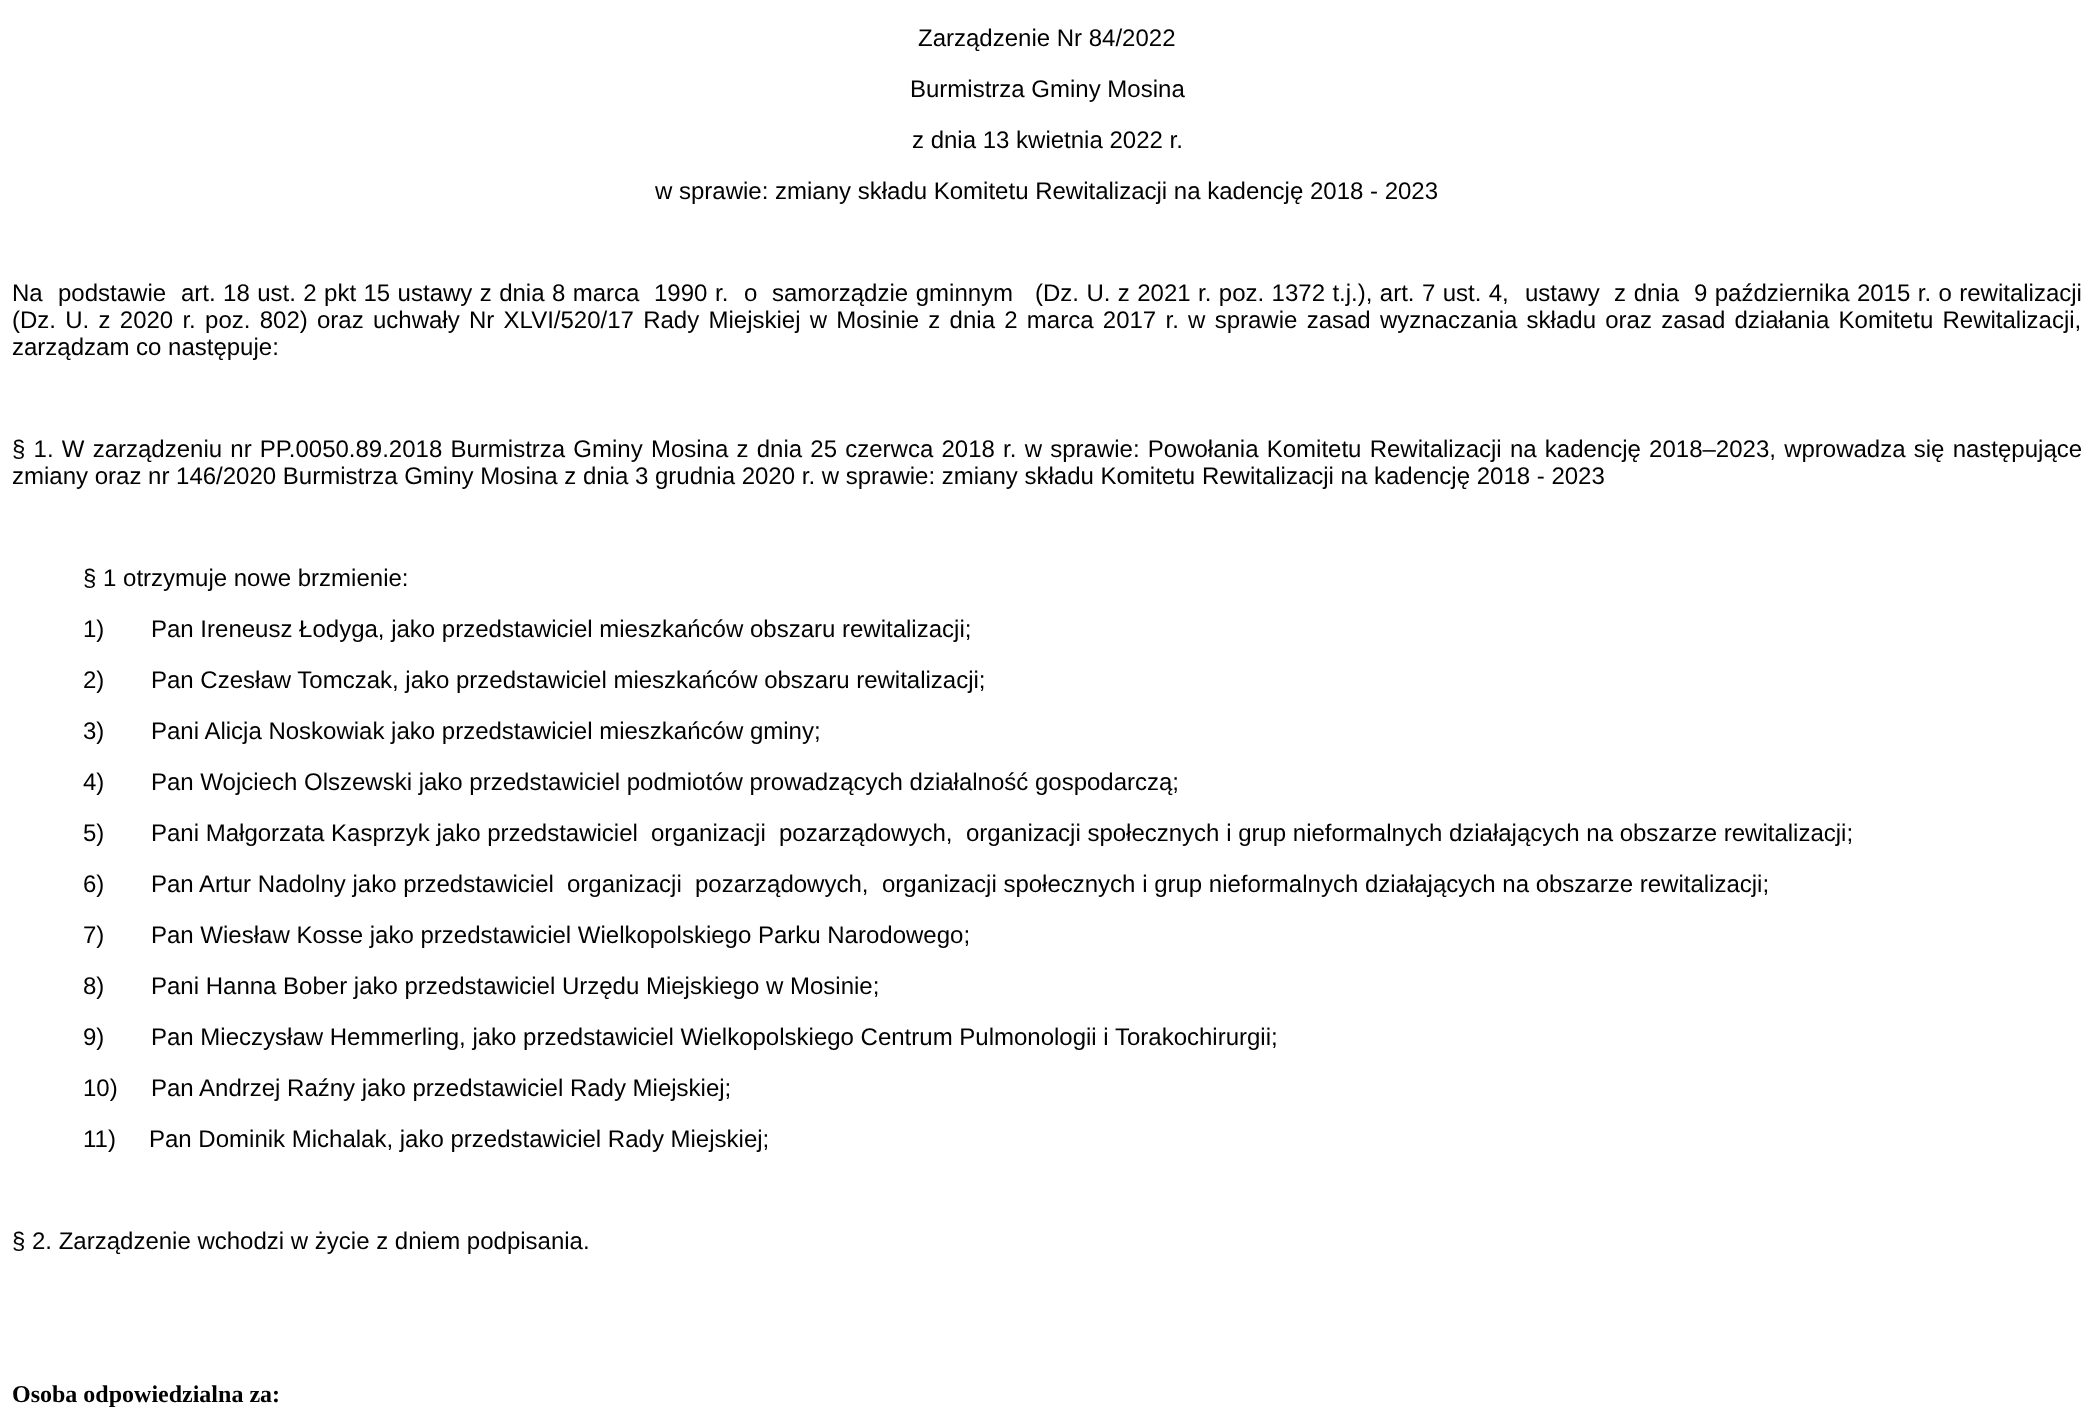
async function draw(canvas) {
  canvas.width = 2094;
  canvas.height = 1426;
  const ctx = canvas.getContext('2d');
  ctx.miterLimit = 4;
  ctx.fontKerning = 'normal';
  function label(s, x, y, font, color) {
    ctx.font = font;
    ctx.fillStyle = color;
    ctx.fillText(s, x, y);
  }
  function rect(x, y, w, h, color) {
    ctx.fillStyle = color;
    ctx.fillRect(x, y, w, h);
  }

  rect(0, 0, 2094, 1426, '#fff');
  label('Zarządzenie Nr 84/2022', 918, 46, '24px Liberation Sans', '#000');
  label('Burmistrza Gminy Mosina', 910, 97, '24px Liberation Sans', '#000');
  label('z dnia 13 kwietnia 2022 r.', 912, 148, '24px Liberation Sans', '#000');
  label('w sprawie: zmiany składu Komitetu Rewitalizacji na kadencję 2018 - 2023', 655, 199, '24px Liberation Sans', '#000');
  label('Na', 12, 301, '24px Liberation Sans', '#000');
  label('podstawie', 58, 301, '24px Liberation Sans', '#000');
  ctx.wordSpacing = '0.75px';
  label('art. 18 ust. 2 pkt 15 ustawy z dnia 8 marca', 181, 301, '24px Liberation Sans', '#000');
  ctx.wordSpacing = '1px';
  label('1990 r.', 654, 301, '24px Liberation Sans', '#000');
  ctx.wordSpacing = '0px';
  label('o', 744, 301, '24px Liberation Sans', '#000');
  ctx.wordSpacing = '1px';
  label('samorządzie gminnym', 772, 301, '24px Liberation Sans', '#000');
  ctx.wordSpacing = '0.75px';
  label('(Dz. U. z 2021 r. poz. 1372 t.j.), art. 7 ust. 4,', 1035, 301, '24px Liberation Sans', '#000');
  ctx.wordSpacing = '0px';
  label('ustawy', 1525, 301, '24px Liberation Sans', '#000');
  ctx.wordSpacing = '1px';
  label('z dnia', 1614, 301, '24px Liberation Sans', '#000');
  ctx.wordSpacing = '0.75px';
  label('9 października 2015 r. o rewitalizacji', 1694, 301, '24px Liberation Sans', '#000');
  ctx.wordSpacing = '2.6px';
  label('(Dz. U. z 2020 r. poz. 802) oraz uchwały', 12, 328, '24px Liberation Sans', '#000');
  label('Nr XLVI/520/17 Rady Miejskiej w Mosinie z dnia 2 marca 2017 r. w sprawie zasad wyznaczania składu oraz zasad działania Komitetu Rewitalizacji,', 469, 328, '24px Liberation Sans', '#000');
  ctx.wordSpacing = '0px';
  label('zarządzam co następuje:', 12, 355, '24px Liberation Sans', '#000');
  ctx.wordSpacing = '1.55px';
  label('§ 1. W zarządzeniu nr PP.0050.89.2018 Burmistrza Gminy Mosina z dnia 25 czerwca 2018 r. w sprawie: Powołania Komitetu Rewitalizacji na kadencję 2018–2023, wprowadza się następujące', 12, 457, '24px Liberation Sans', '#000');
  ctx.wordSpacing = '0px';
  label('zmiany oraz nr 146/2020 Burmistrza Gminy Mosina z dnia 3 grudnia 2020 r. w sprawie: zmiany składu Komitetu Rewitalizacji na kadencję 2018 - 2023', 12, 484, '24px Liberation Sans', '#000');
  label('§ 1 otrzymuje nowe brzmienie:', 83, 586, '24px Liberation Sans', '#000');
  label('1)', 83, 637, '24px Liberation Sans', '#000');
  label('Pan Ireneusz Łodyga, jako przedstawiciel mieszkańców obszaru rewitalizacji;', 151, 637, '24px Liberation Sans', '#000');
  label('2)', 83, 688, '24px Liberation Sans', '#000');
  label('Pan Czesław Tomczak, jako przedstawiciel mieszkańców obszaru rewitalizacji;', 151, 688, '24px Liberation Sans', '#000');
  label('3)', 83, 739, '24px Liberation Sans', '#000');
  label('Pani Alicja Noskowiak jako przedstawiciel mieszkańców gminy;', 151, 739, '24px Liberation Sans', '#000');
  label('4)', 83, 790, '24px Liberation Sans', '#000');
  label('Pan Wojciech Olszewski jako przedstawiciel podmiotów prowadzących działalność gospodarczą;', 151, 790, '24px Liberation Sans', '#000');
  label('5)', 83, 841, '24px Liberation Sans', '#000');
  label('Pani Małgorzata Kasprzyk jako przedstawiciel', 151, 841, '24px Liberation Sans', '#000');
  label('organizacji', 651, 841, '24px Liberation Sans', '#000');
  label('pozarządowych,', 779, 841, '24px Liberation Sans', '#000');
  label('organizacji społecznych i grup nieformalnych działających na obszarze rewitalizacji;', 966, 841, '24px Liberation Sans', '#000');
  label('6)', 83, 892, '24px Liberation Sans', '#000');
  label('Pan Artur Nadolny jako przedstawiciel', 151, 892, '24px Liberation Sans', '#000');
  label('organizacji', 567, 892, '24px Liberation Sans', '#000');
  label('pozarządowych,', 695, 892, '24px Liberation Sans', '#000');
  label('organizacji społecznych i grup nieformalnych działających na obszarze rewitalizacji;', 882, 892, '24px Liberation Sans', '#000');
  label('7)', 83, 943, '24px Liberation Sans', '#000');
  label('Pan Wiesław Kosse jako przedstawiciel Wielkopolskiego Parku Narodowego;', 151, 943, '24px Liberation Sans', '#000');
  label('8)', 83, 994, '24px Liberation Sans', '#000');
  label('Pani Hanna Bober jako przedstawiciel Urzędu Miejskiego w Mosinie;', 151, 994, '24px Liberation Sans', '#000');
  label('9)', 83, 1045, '24px Liberation Sans', '#000');
  label('Pan Mieczysław Hemmerling, jako przedstawiciel Wielkopolskiego Centrum Pulmonologii i Torakochirurgii;', 151, 1045, '24px Liberation Sans', '#000');
  label('10)', 83, 1096, '24px Liberation Sans', '#000');
  label('Pan Andrzej Raźny jako przedstawiciel Rady Miejskiej;', 151, 1096, '24px Liberation Sans', '#000');
  label('11)', 83, 1147, '24px Liberation Sans', '#000');
  label('Pan Dominik Michalak, jako przedstawiciel Rady Miejskiej;', 149, 1147, '24px Liberation Sans', '#000');
  label('§ 2. Zarządzenie wchodzi w życie z dniem podpisania.', 12, 1249, '24px Liberation Sans', '#000');
  label('Osoba odpowiedzialna za:', 12, 1402, 'bold 24px Liberation Serif', '#000');
}

draw(document.querySelector('canvas'));
